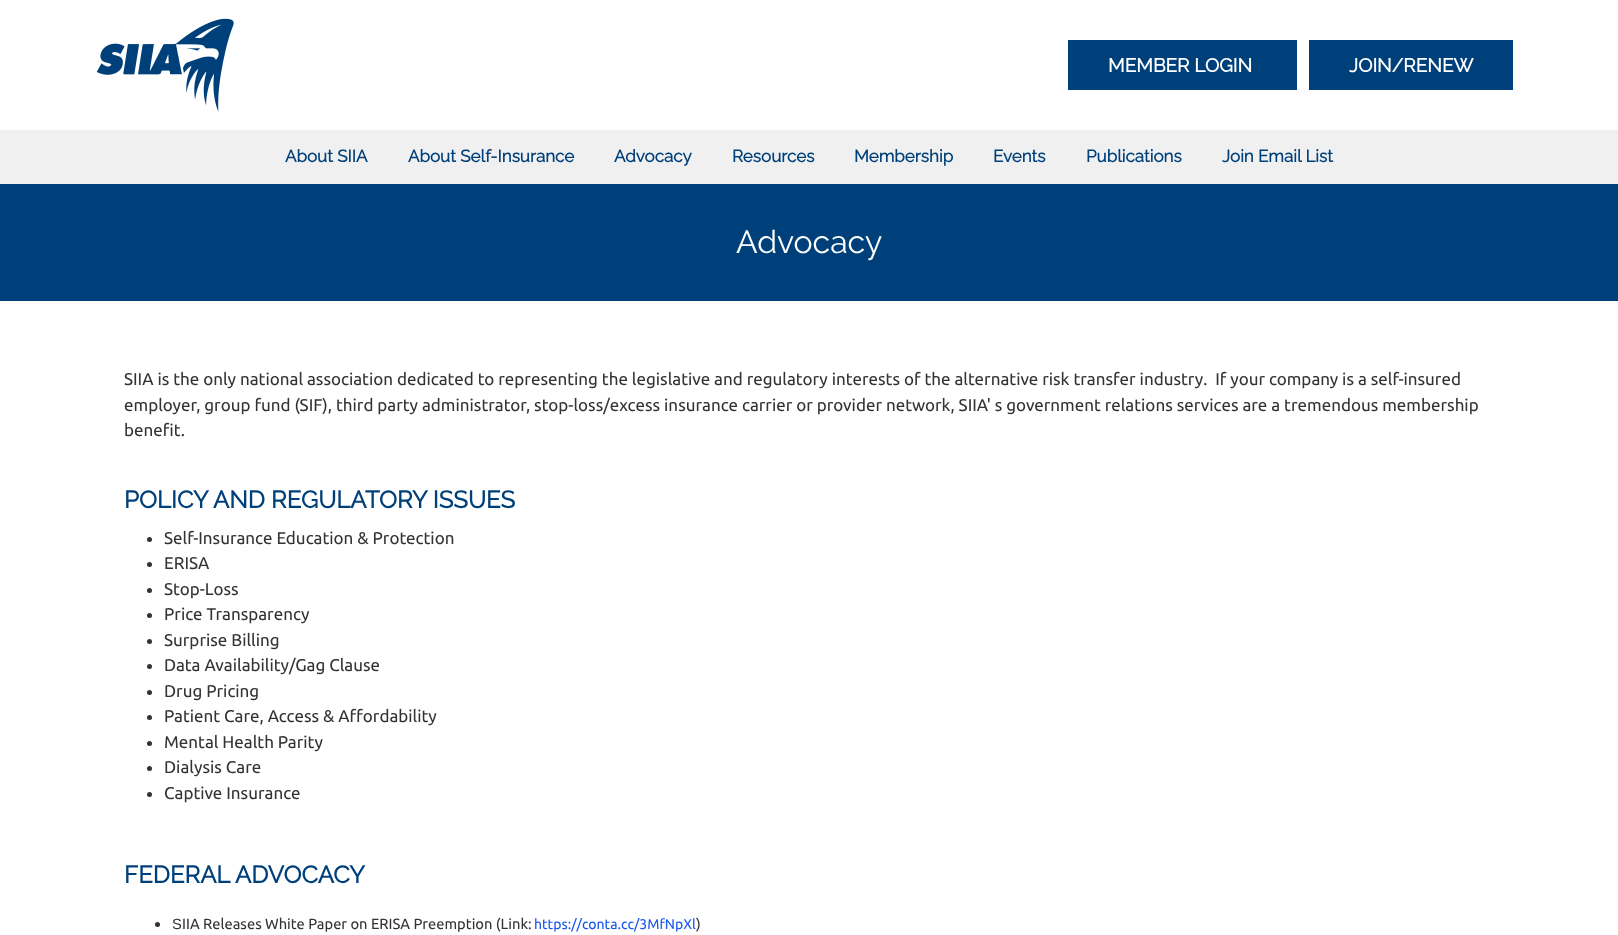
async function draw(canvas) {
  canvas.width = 1618;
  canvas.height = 935;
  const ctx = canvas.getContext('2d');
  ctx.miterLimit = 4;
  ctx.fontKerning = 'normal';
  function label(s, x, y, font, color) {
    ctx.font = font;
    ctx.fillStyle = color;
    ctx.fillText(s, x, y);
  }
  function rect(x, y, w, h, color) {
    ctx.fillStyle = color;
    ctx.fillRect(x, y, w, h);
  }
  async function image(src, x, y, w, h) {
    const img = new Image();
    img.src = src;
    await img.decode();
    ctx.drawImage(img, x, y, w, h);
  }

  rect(0, 0, 1618, 935, '#fff');
  await image('assets/img1.png', 96, 18, 138, 94);
  rect(1068, 40, 229, 50, '#00407a');
  label('MEMBER LOGIN', 1108, 72, 'bold 19px Raleway', '#fff');
  rect(1309, 40, 204, 50, '#00407a');
  label('JOIN/RENEW', 1349, 72, 'bold 19px Raleway', '#fff');
  rect(0, 130, 1618, 54, '#f0f0f0');
  label('About SIIA', 285, 162, 'bold 17px Raleway', '#00407a');
  label('About Self-Insurance', 408, 162, 'bold 17px Raleway', '#00407a');
  label('Advocacy', 614, 162, 'bold 17px Raleway', '#00407a');
  label('Resources', 732, 162, 'bold 17px Raleway', '#00407a');
  label('Membership', 854, 162, 'bold 17px Raleway', '#00407a');
  label('Events', 993, 162, 'bold 17px Raleway', '#00407a');
  label('Publications', 1086, 162, 'bold 17px Raleway', '#00407a');
  label('Join Email List', 1222, 162, 'bold 17px Raleway', '#00407a');
  rect(0, 184, 1618, 117, '#00407a');
  label('Advocacy', 736, 253, '32px Raleway', '#fff');
  label('SIIA is the only national association dedicated to representing the legislative and regulatory interests of the alternative risk transfer industry.  If your company is a self-insured', 124, 385, '17px Ubuntu', '#333');
  label('employer, group fund (SIF), third party administrator, stop-loss/excess insurance carrier or provider network, SIIA\' s government relations services are a tremendous membership', 124, 411, '17px Ubuntu', '#333');
  label('benefit.', 124, 436, '17px Ubuntu', '#333');
  label('POLICY AND REGULATORY ISSUES', 124, 508, 'bold 24px Raleway', '#00407a');
  ctx.fillStyle = '#333';
  ctx.beginPath();
  ctx.arc(149.5, 539.5, 2.5, 0, 2 * Math.PI);
  ctx.fill();
  label('Self-Insurance Education & Protection', 164, 544, '17px Ubuntu', '#333');
  ctx.beginPath();
  ctx.arc(149.5, 564.5, 2.5, 0, 2 * Math.PI);
  ctx.fill();
  label('ERISA', 164, 569, '17px Ubuntu', '#333');
  ctx.beginPath();
  ctx.arc(149.5, 590.5, 2.5, 0, 2 * Math.PI);
  ctx.fill();
  label('Stop-Loss', 164, 595, '17px Ubuntu', '#333');
  ctx.beginPath();
  ctx.arc(149.5, 615.5, 2.5, 0, 2 * Math.PI);
  ctx.fill();
  label('Price Transparency', 164, 620, '17px Ubuntu', '#333');
  ctx.beginPath();
  ctx.arc(149.5, 641.5, 2.5, 0, 2 * Math.PI);
  ctx.fill();
  label('Surprise Billing', 164, 646, '17px Ubuntu', '#333');
  ctx.beginPath();
  ctx.arc(149.5, 666.5, 2.5, 0, 2 * Math.PI);
  ctx.fill();
  label('Data Availability/Gag Clause', 164, 671, '17px Ubuntu', '#333');
  ctx.beginPath();
  ctx.arc(149.5, 692.5, 2.5, 0, 2 * Math.PI);
  ctx.fill();
  label('Drug Pricing', 164, 697, '17px Ubuntu', '#333');
  ctx.beginPath();
  ctx.arc(149.5, 717.5, 2.5, 0, 2 * Math.PI);
  ctx.fill();
  label('Patient Care, Access & Affordability', 164, 722, '17px Ubuntu', '#333');
  ctx.beginPath();
  ctx.arc(149.5, 743.5, 2.5, 0, 2 * Math.PI);
  ctx.fill();
  label('Mental Health Parity', 164, 748, '17px Ubuntu', '#333');
  ctx.beginPath();
  ctx.arc(149.5, 768.5, 2.5, 0, 2 * Math.PI);
  ctx.fill();
  label('Dialysis Care', 164, 773, '17px Ubuntu', '#333');
  ctx.beginPath();
  ctx.arc(149.5, 794.5, 2.5, 0, 2 * Math.PI);
  ctx.fill();
  label('Captive Insurance', 164, 799, '17px Ubuntu', '#333');
  label('FEDERAL ADVOCACY', 124, 883, 'bold 24px Raleway', '#00407a');
  ctx.fillStyle = '#333';
  ctx.beginPath();
  ctx.arc(157.5, 924.5, 2.5, 0, 2 * Math.PI);
  ctx.fill();
  label('S', 172, 929, '14.7px Liberation Sans', '#333');
  label('IIA Releases White Paper on ERISA Preemption (Link:', 182, 929, '14.7px Ubuntu', '#333');
  label('https://conta.cc/3MfNpXl', 534, 929, '14px Ubuntu', '#1856ed');
  label(')', 696, 929, '14.7px Ubuntu', '#333');
}

draw(document.querySelector('canvas'));
